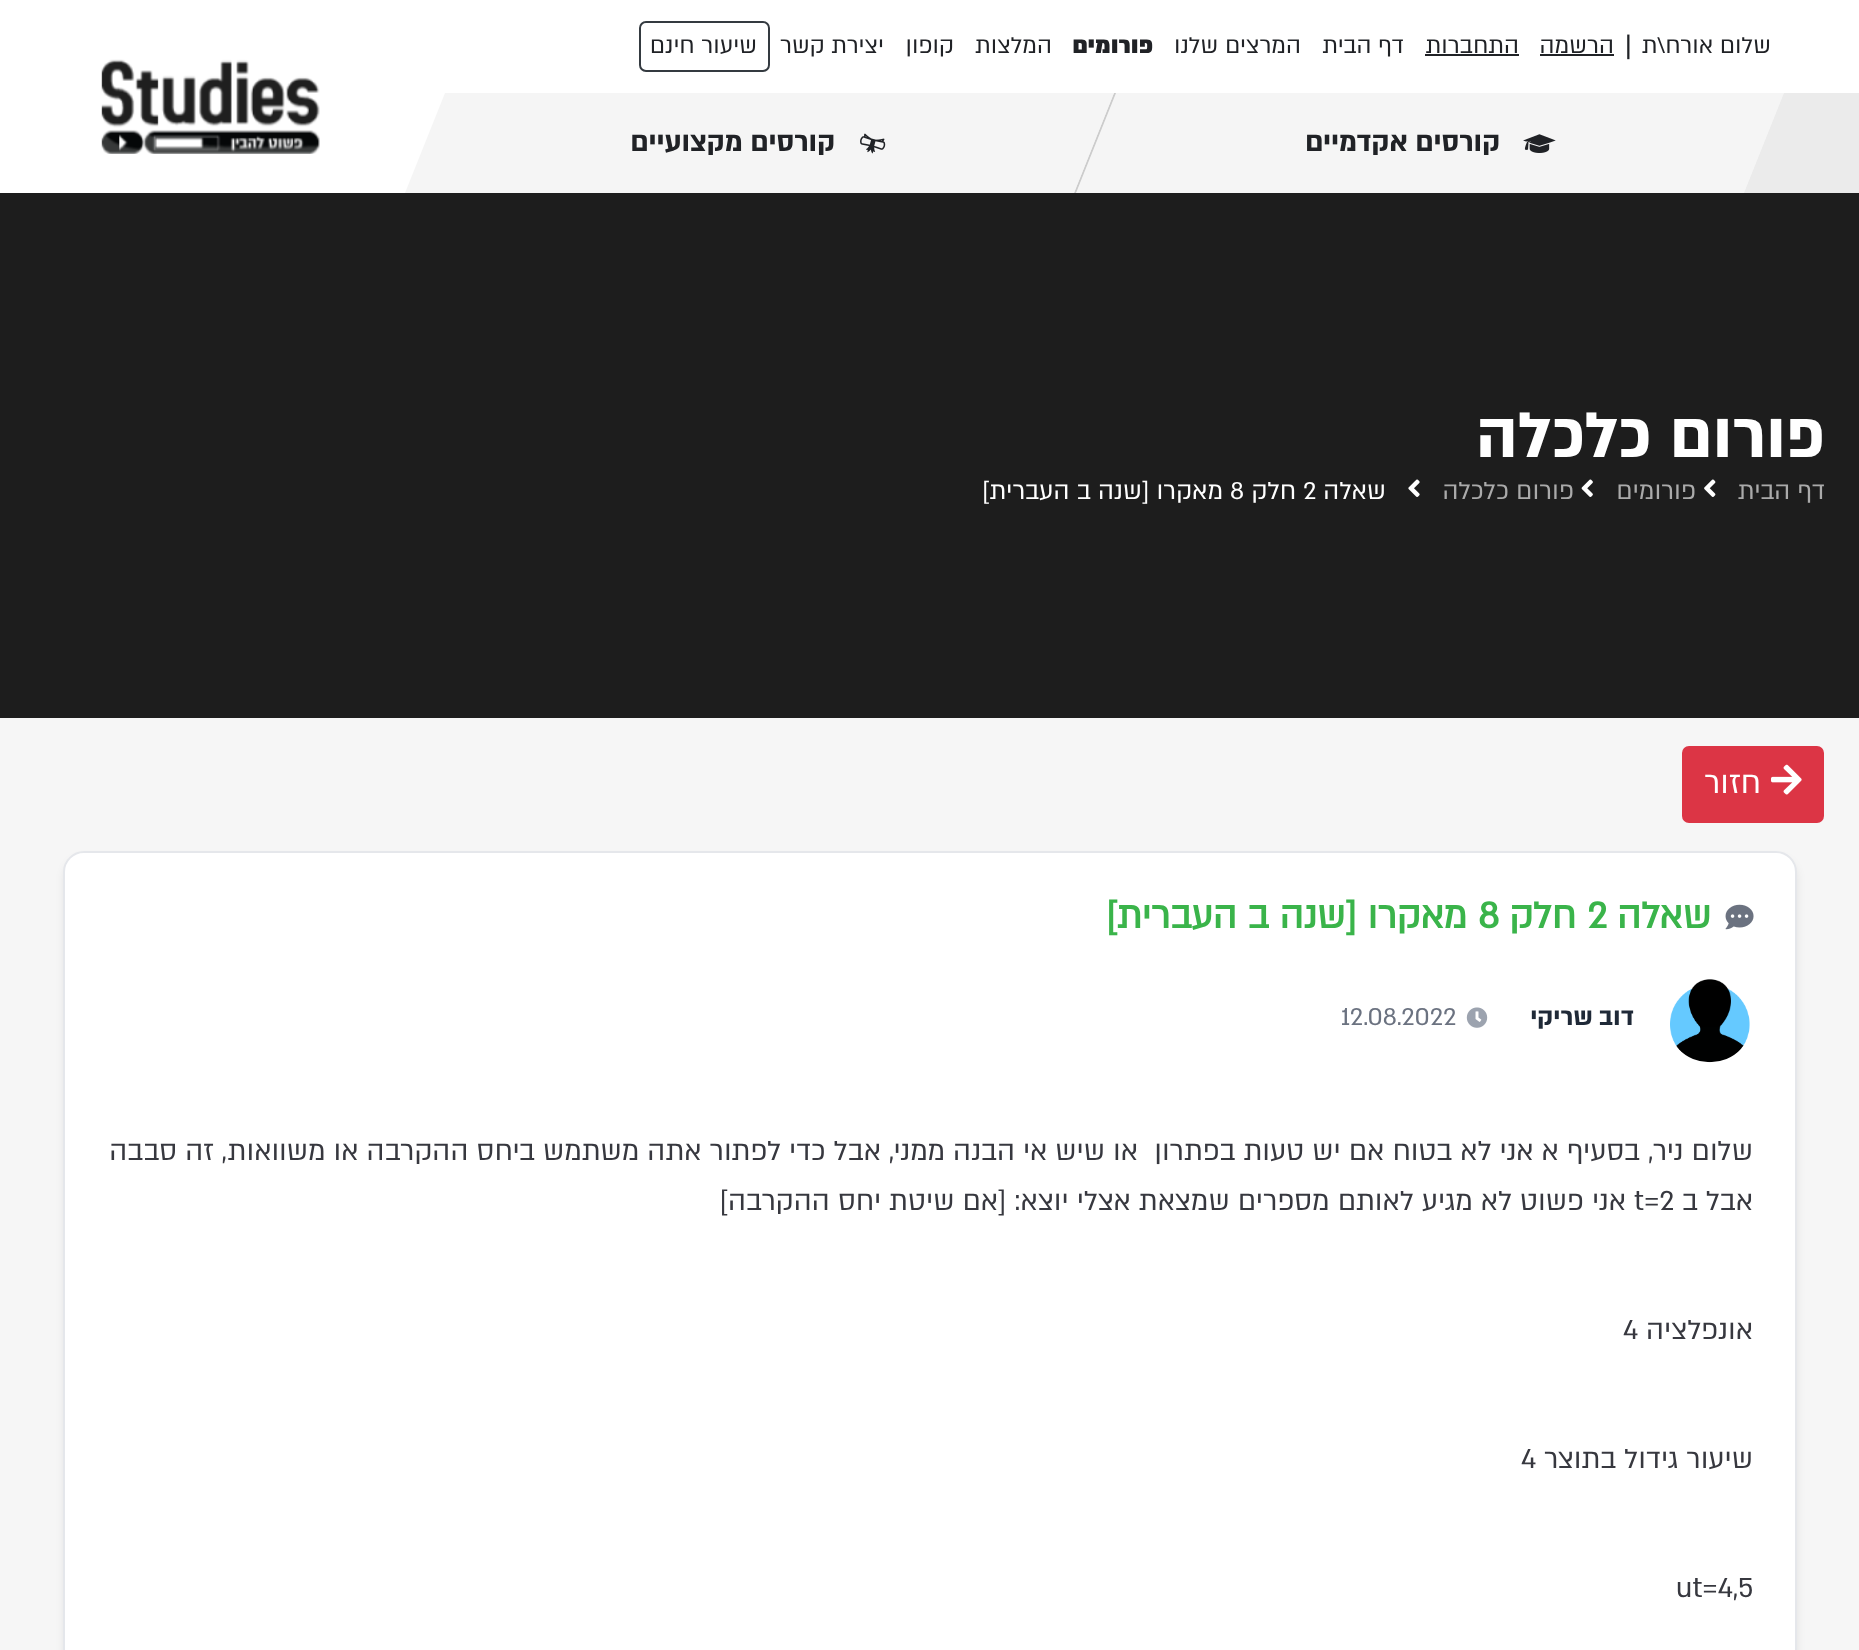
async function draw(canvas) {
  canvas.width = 1859;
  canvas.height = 1650;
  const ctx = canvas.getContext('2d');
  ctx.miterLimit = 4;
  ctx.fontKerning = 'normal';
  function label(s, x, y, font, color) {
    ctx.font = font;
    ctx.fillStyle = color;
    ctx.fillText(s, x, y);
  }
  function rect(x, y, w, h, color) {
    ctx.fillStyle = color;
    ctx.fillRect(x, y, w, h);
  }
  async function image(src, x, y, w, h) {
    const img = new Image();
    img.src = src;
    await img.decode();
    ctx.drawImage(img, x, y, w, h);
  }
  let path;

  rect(0, 0, 1859, 1650, '#fff');
  ctx.direction = 'rtl';
  label('שלום אורח\\ת', 1771, 53, '26.25px "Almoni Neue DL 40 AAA"', '#202226');
  ctx.direction = 'ltr';
  label('|', 1625, 54, '30px "Almoni Neue DL 40 AAA"', '#202226');
  ctx.direction = 'rtl';
  label('הרשמה', 1614, 53, '26.25px "Almoni Neue DL 40 AAA"', '#202226');
  rect(1540, 54, 74, 2, '#202226');
  label('התחברות', 1519, 53, '26.25px "Almoni Neue DL 40 AAA"', '#202226');
  rect(1425, 54, 94, 2, '#202226');
  label('דף הבית', 1404, 53, '26.25px "Almoni Neue DL 40 AAA"', '#202226');
  label('המרצים שלנו', 1301, 53, '26.25px "Almoni Neue DL 40 AAA"', '#202226');
  label('פורומים', 1153, 53, '900 26.25px "Almoni Neue DL 40 AAA"', '#202226');
  label('המלצות', 1052, 53, '26.25px "Almoni Neue DL 40 AAA"', '#202226');
  label('קופון', 954, 53, '26.25px "Almoni Neue DL 40 AAA"', '#202226');
  label('יצירת קשר', 884, 53, '26.25px "Almoni Neue DL 40 AAA"', '#202226');
  ctx.beginPath();
  ctx.roundRect(640, 22, 129, 49, 6);
  ctx.strokeStyle = '#343a40';
  ctx.lineWidth = 2;
  ctx.stroke();
  label('שיעור חינם', 757, 53, '26.25px "Almoni Neue DL 40 AAA"', '#202226');
  rect(1074, 93, 785, 100, '#ebebeb');
  ctx.fillStyle = '#f5f5f5';
  path = new Path2D('M1114 93H1784L1744 193H1074Z');
  ctx.fill(path);
  ctx.fillStyle = '#ccc';
  path = new Path2D('M1114 93H1116L1076 193H1074Z');
  ctx.fill(path);
  await image('assets/img1.png', 1523, 134, 33, 19);
  label('קורסים אקדמיים', 1500, 151, 'bold 31.5px "Almoni Neue DL 40 AAA"', '#202226');
  ctx.fillStyle = '#f5f5f5';
  path = new Path2D('M445 93H1114L1074 193H405Z');
  ctx.fill(path);
  await image('assets/img2.png', 860, 133, 26, 21);
  label('קורסים מקצועיים', 835, 151, 'bold 31.5px "Almoni Neue DL 40 AAA"', '#202226');
  await image('assets/img3.png', 101, 59, 219, 95);
  rect(0, 193, 1859, 525, '#1d1d1d');
  label('פורום כלכלה', 1825, 457, 'bold 73.5px "Almoni Neue DL 40 AAA"', '#fff');
  label('דף הבית', 1825, 499, '28px "Almoni Neue DL 40 AAA"', '#aaa');
  await image('assets/img4.png', 1704, 479, 12, 18);
  label('פורומים', 1696, 499, '28px "Almoni Neue DL 40 AAA"', '#aaa');
  await image('assets/img5.png', 1581, 479, 12, 18);
  label('פורום כלכלה', 1574, 499, '28px "Almoni Neue DL 40 AAA"', '#aaa');
  await image('assets/img6.png', 1408, 479, 12, 18);
  label('שאלה', 1386, 499, '28px "Almoni Neue DL 40 AAA"', '#fff');
  ctx.direction = 'ltr';
  label('2', 1303, 499, '28px "Almoni Neue DL 40 AAA"', '#fff');
  ctx.direction = 'rtl';
  label('חלק', 1296, 499, '28px "Almoni Neue DL 40 AAA"', '#fff');
  ctx.direction = 'ltr';
  label('8', 1230, 499, '28px "Almoni Neue DL 40 AAA"', '#fff');
  ctx.direction = 'rtl';
  label('מאקרו [שנה ב העברית]', 1223, 499, '28px "Almoni Neue DL 40 AAA"', '#fff');
  rect(0, 718, 1859, 932, '#f6f6f6');
  ctx.fillStyle = '#dc3545';
  ctx.beginPath();
  ctx.roundRect(1683, 747, 140, 75, 6);
  ctx.fill();
  ctx.strokeStyle = '#dc3545';
  ctx.stroke();
  await image('assets/img7.png', 1771, 764, 31, 31);
  label('חזור', 1761, 793, '35px "Almoni Neue DL 40 AAA"', '#fff');
  ctx.fillStyle = '#0000001a';
  ctx.filter = 'blur(5px)';
  ctx.beginPath();
  ctx.roundRect(65, 859, 1731, 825, 19);
  ctx.fill();
  ctx.filter = 'none';
  ctx.fillStyle = '#fff';
  ctx.beginPath();
  ctx.roundRect(64, 852, 1732, 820, 20);
  ctx.fill();
  ctx.strokeStyle = '#e5e7eb';
  ctx.stroke();
  await image('assets/img8.png', 1725, 904, 29, 26);
  label('שאלה', 1711, 928, 'bold 42px "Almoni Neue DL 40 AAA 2"', '#3ab44a');
  ctx.direction = 'ltr';
  label('2', 1587, 928, 'bold 42px "Almoni Neue DL 40 AAA 2"', '#3ab44a');
  ctx.direction = 'rtl';
  label('חלק', 1576, 928, 'bold 42px "Almoni Neue DL 40 AAA 2"', '#3ab44a');
  ctx.direction = 'ltr';
  label('8', 1478, 928, 'bold 42px "Almoni Neue DL 40 AAA 2"', '#3ab44a');
  ctx.direction = 'rtl';
  label('מאקרו [שנה ב העברית]', 1467, 928, 'bold 42px "Almoni Neue DL 40 AAA 2"', '#3ab44a');
  await image('assets/img9.png', 1670, 979, 80, 84);
  label('דוב', 1634, 1025, 'bold 28px "Almoni Neue DL 40 AAA"', '#1f2937');
  label('שריקי', 1593, 1025, 'bold 28px "Almoni Neue DL 40 AAA"', '#1f2937');
  await image('assets/img10.png', 1466, 1007, 22, 21);
  ctx.direction = 'ltr';
  label('12.08.2022', 1341, 1025, '28px "Almoni Neue DL 40 AAA"', '#6b7280');
  ctx.direction = 'rtl';
  label('שלום ניר, בסעיף א אני לא בטוח אם יש טעות בפתרון  או שיש אי הבנה ממני, אבל כדי לפתור אתה משתמש ביחס ההקרבה או משוואות, זה סבבה', 1753, 1160, '31.5px "Almoni Neue DL 40 AAA"', '#37383f');
  label('אבל ב', 1753, 1210, '31.5px "Almoni Neue DL 40 AAA"', '#37383f');
  ctx.direction = 'ltr';
  label('t=2', 1634, 1210, '31.5px "Almoni Neue DL 40 AAA"', '#37383f');
  ctx.direction = 'rtl';
  label('אני פשוט לא מגיע לאותם מספרים שמצאת אצלי יוצא: [אם שיטת יחס ההקרבה]', 1626, 1210, '31.5px "Almoni Neue DL 40 AAA"', '#37383f');
  label('אונפלציה', 1753, 1339, '31.5px "Almoni Neue DL 40 AAA"', '#37383f');
  ctx.direction = 'ltr';
  label('4', 1623, 1339, '31.5px "Almoni Neue DL 40 AAA"', '#37383f');
  ctx.direction = 'rtl';
  label('שיעור גידול בתוצר', 1753, 1468, '31.5px "Almoni Neue DL 40 AAA"', '#37383f');
  ctx.direction = 'ltr';
  label('4', 1521, 1468, '31.5px "Almoni Neue DL 40 AAA"', '#37383f');
  label('ut=4,5', 1676, 1597, '31.5px "Almoni Neue DL 40 AAA"', '#37383f');
}

draw(document.querySelector('canvas'));
